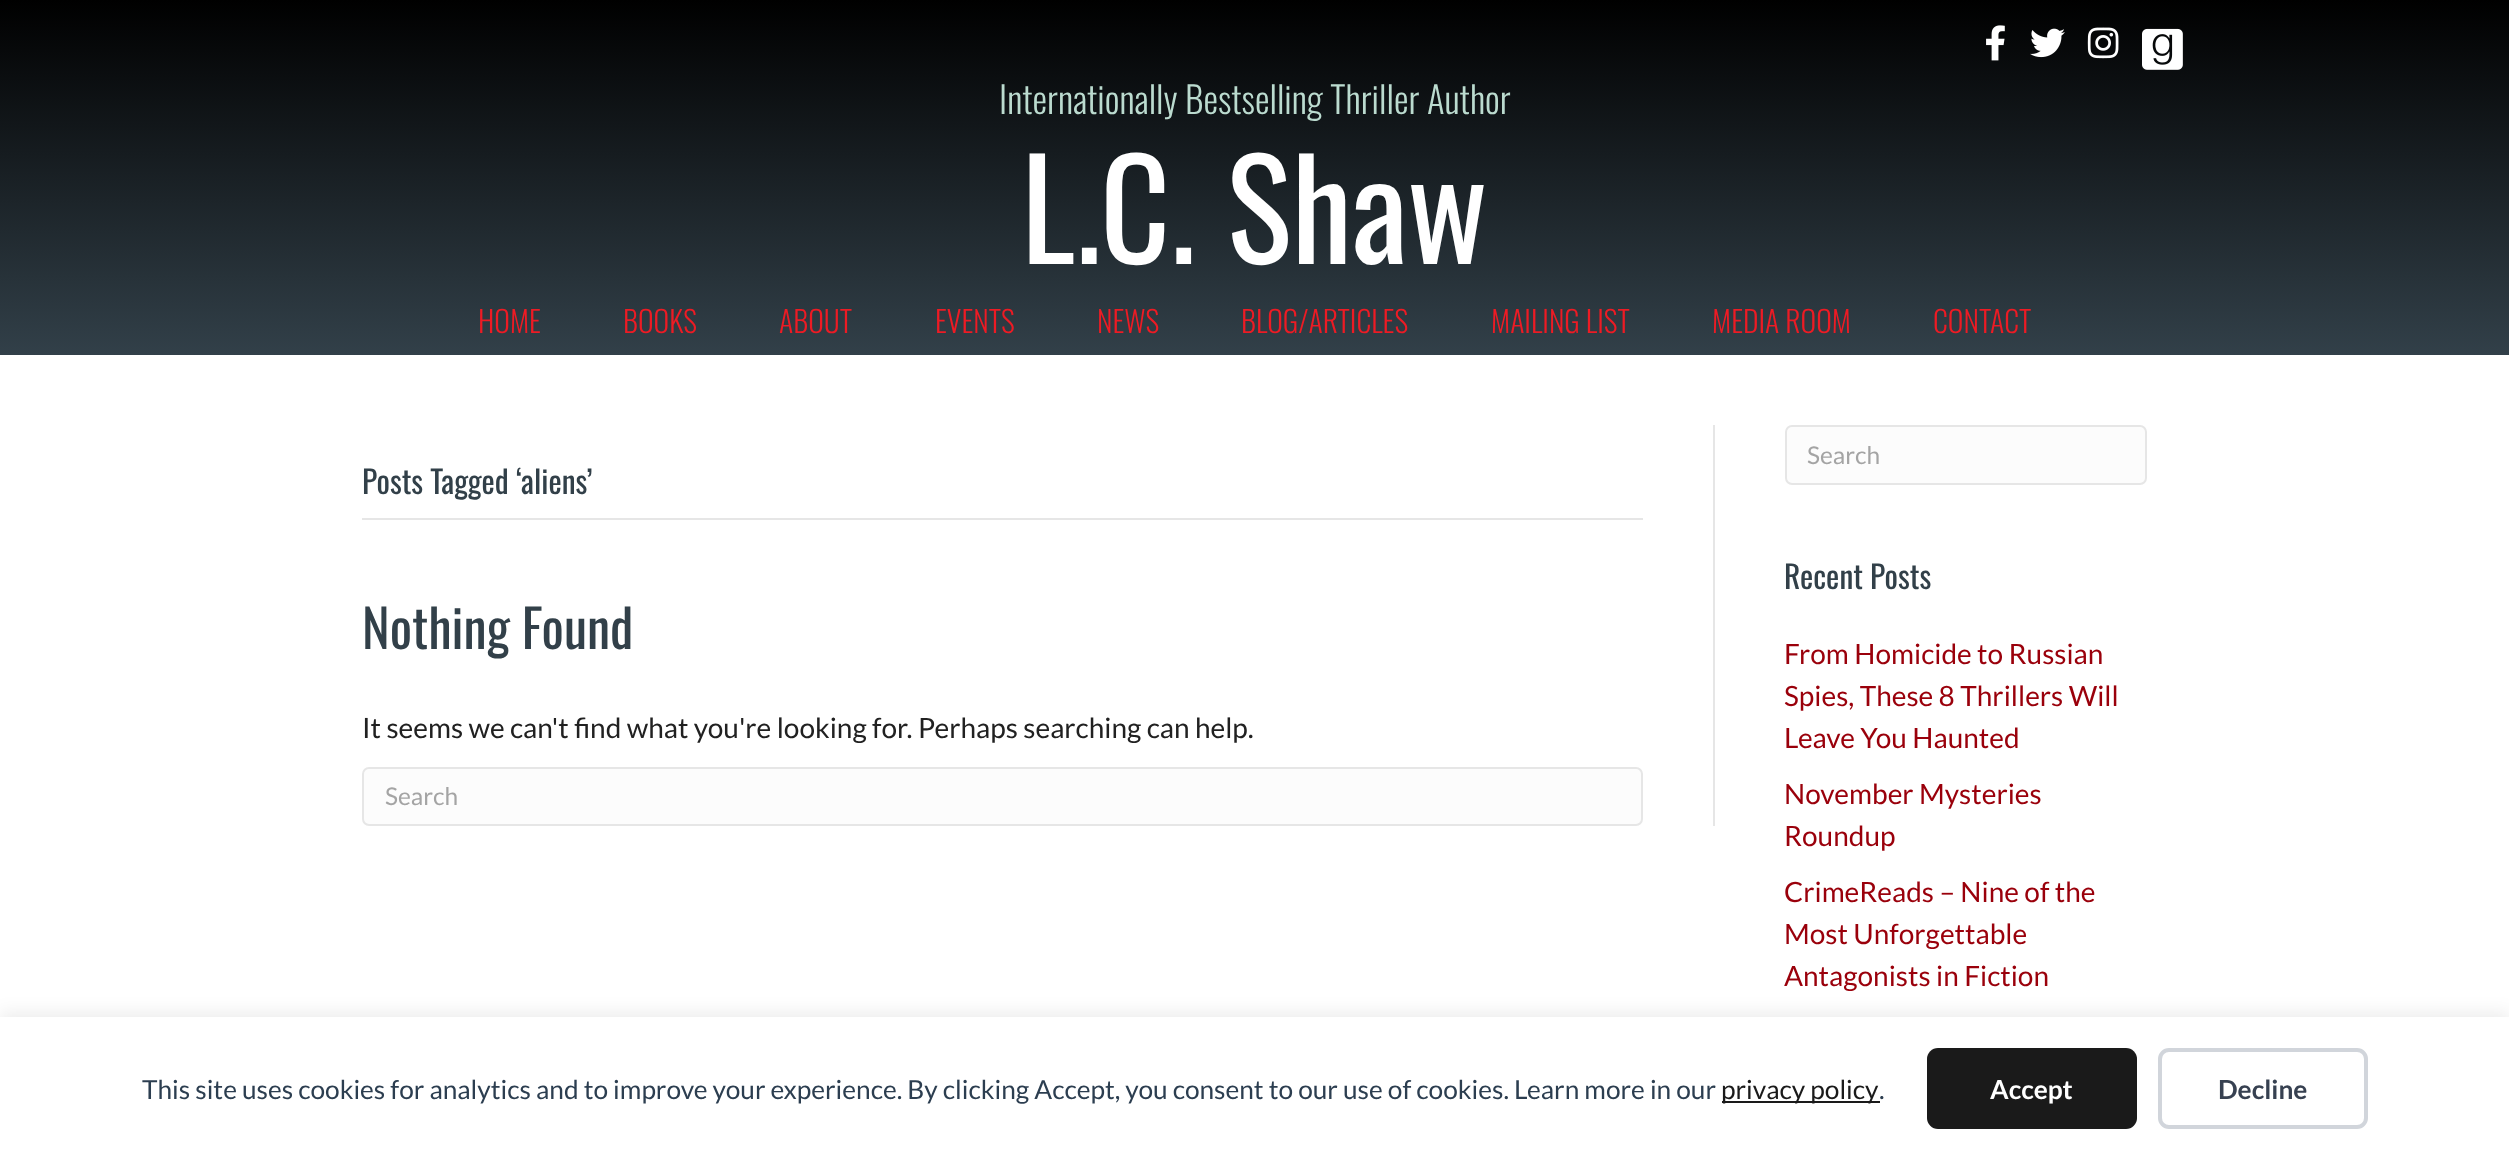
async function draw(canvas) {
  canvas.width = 2509;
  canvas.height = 1159;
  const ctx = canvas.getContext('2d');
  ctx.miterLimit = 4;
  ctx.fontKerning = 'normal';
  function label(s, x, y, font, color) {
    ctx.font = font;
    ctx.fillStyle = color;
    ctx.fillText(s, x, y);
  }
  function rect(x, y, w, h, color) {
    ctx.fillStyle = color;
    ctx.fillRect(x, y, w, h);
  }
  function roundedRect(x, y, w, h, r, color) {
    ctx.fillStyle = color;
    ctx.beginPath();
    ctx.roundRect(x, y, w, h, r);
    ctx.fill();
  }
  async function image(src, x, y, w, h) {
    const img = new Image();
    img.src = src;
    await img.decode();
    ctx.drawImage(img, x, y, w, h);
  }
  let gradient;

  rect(0, 0, 2509, 1159, '#fff');
  gradient = ctx.createLinearGradient(1255, 0, 1255, 355);
  gradient.addColorStop(0, '#000');
  gradient.addColorStop(1, '#324049');
  ctx.fillStyle = gradient;
  ctx.fillRect(0, 0, 2509, 355);
  await image('assets/img1.png', 1986, 25, 19, 36);
  await image('assets/img2.png', 2030, 28, 35, 30);
  await image('assets/img3.png', 2087, 27, 32, 32);
  await image('assets/img4.png', 2142, 28, 41, 42);
  label('Internationally Bestselling Thriller Author', 999, 114, '300 36.75px Oswald', '#bbdbcf');
  label('L.C. Shaw', 1021, 264, '136.5px Oswald', '#fff');
  label('HOME', 478, 333, '300 29.75px Oswald', '#ed1b24');
  label('BOOKS', 623, 333, '300 29.75px Oswald', '#ed1b24');
  label('ABOUT', 779, 333, '300 29.75px Oswald', '#ed1b24');
  label('EVENTS', 935, 333, '300 29.75px Oswald', '#ed1b24');
  label('NEWS', 1097, 333, '300 29.75px Oswald', '#ed1b24');
  label('BLOG/ARTICLES', 1241, 333, '300 29.75px Oswald', '#ed1b24');
  label('MAILING LIST', 1491, 333, '300 29.75px Oswald', '#ed1b24');
  label('MEDIA ROOM', 1712, 333, '300 29.75px Oswald', '#ed1b24');
  label('CONTACT', 1933, 333, '300 29.75px Oswald', '#ed1b24');
  rect(1713, 425, 2, 401, '#e6e6e6');
  rect(362, 518, 1281, 2, '#e6e6e6');
  label('Posts Tagged ‘aliens’', 362, 494, '31.5px Oswald', '#324049');
  label('Nothing Found', 362, 649, '52.5px Oswald', '#324049');
  label('It seems we can\'t find what you\'re looking for. Perhaps searching can help.', 362, 738, '28px Lato', '#212121');
  ctx.fillStyle = '#fcfcfc';
  ctx.beginPath();
  ctx.roundRect(363, 768, 1279, 57, 6);
  ctx.fill();
  ctx.strokeStyle = '#e6e6e6';
  ctx.lineWidth = 2;
  ctx.stroke();
  label('Search', 385, 805, '24.5px Lato', '#a4a4a4');
  ctx.fillStyle = '#fcfcfc';
  ctx.beginPath();
  ctx.roundRect(1786, 426, 360, 58, 6);
  ctx.fill();
  ctx.stroke();
  label('Search', 1807, 464, '24.5px Lato', '#a4a4a4');
  label('Recent Posts', 1784, 589, '31.5px Oswald', '#324049');
  label('From Homicide to Russian', 1784, 664, '28px Lato', '#9a000b');
  label('Spies, These 8 Thrillers Will', 1784, 706, '28px Lato', '#9a000b');
  label('Leave You Haunted', 1784, 748, '28px Lato', '#9a000b');
  label('November Mysteries', 1784, 804, '28px Lato', '#9a000b');
  label('Roundup', 1784, 846, '28px Lato', '#9a000b');
  label('CrimeReads – Nine of the', 1784, 902, '28px Lato', '#9a000b');
  label('Most Unforgettable', 1784, 944, '28px Lato', '#9a000b');
  label('Antagonists in Fiction', 1784, 986, '28px Lato', '#9a000b');
  ctx.fillStyle = '#00000014';
  ctx.filter = 'blur(9px)';
  ctx.beginPath();
  ctx.rect(0, 1013, 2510, 144);
  ctx.fill();
  ctx.filter = 'none';
  rect(0, 1017, 2509, 142, '#fff');
  label('This site uses cookies for analytics and to improve your experience. By clicking Accept, you consent to our use of cookies. Learn more in our', 142, 1099, '26.25px Lato', '#2c3e50');
  rect(1722, 1101, 158, 2, '#1a1a1a');
  label('privacy policy', 1721, 1099, '26.25px Lato', '#1a1a1a');
  label('.', 1879, 1099, '26.25px Lato', '#2c3e50');
  roundedRect(1927, 1048, 210, 81, 11, '#1a1a1a');
  label('Accept', 1990, 1099, 'bold 26.25px Lato', '#fff');
  ctx.beginPath();
  ctx.roundRect(2160, 1050, 206, 77, 9);
  ctx.strokeStyle = '#d1d5db';
  ctx.lineWidth = 4;
  ctx.stroke();
  label('Decline', 2218, 1099, 'bold 26.25px Lato', '#374151');
}

draw(document.querySelector('canvas'));
